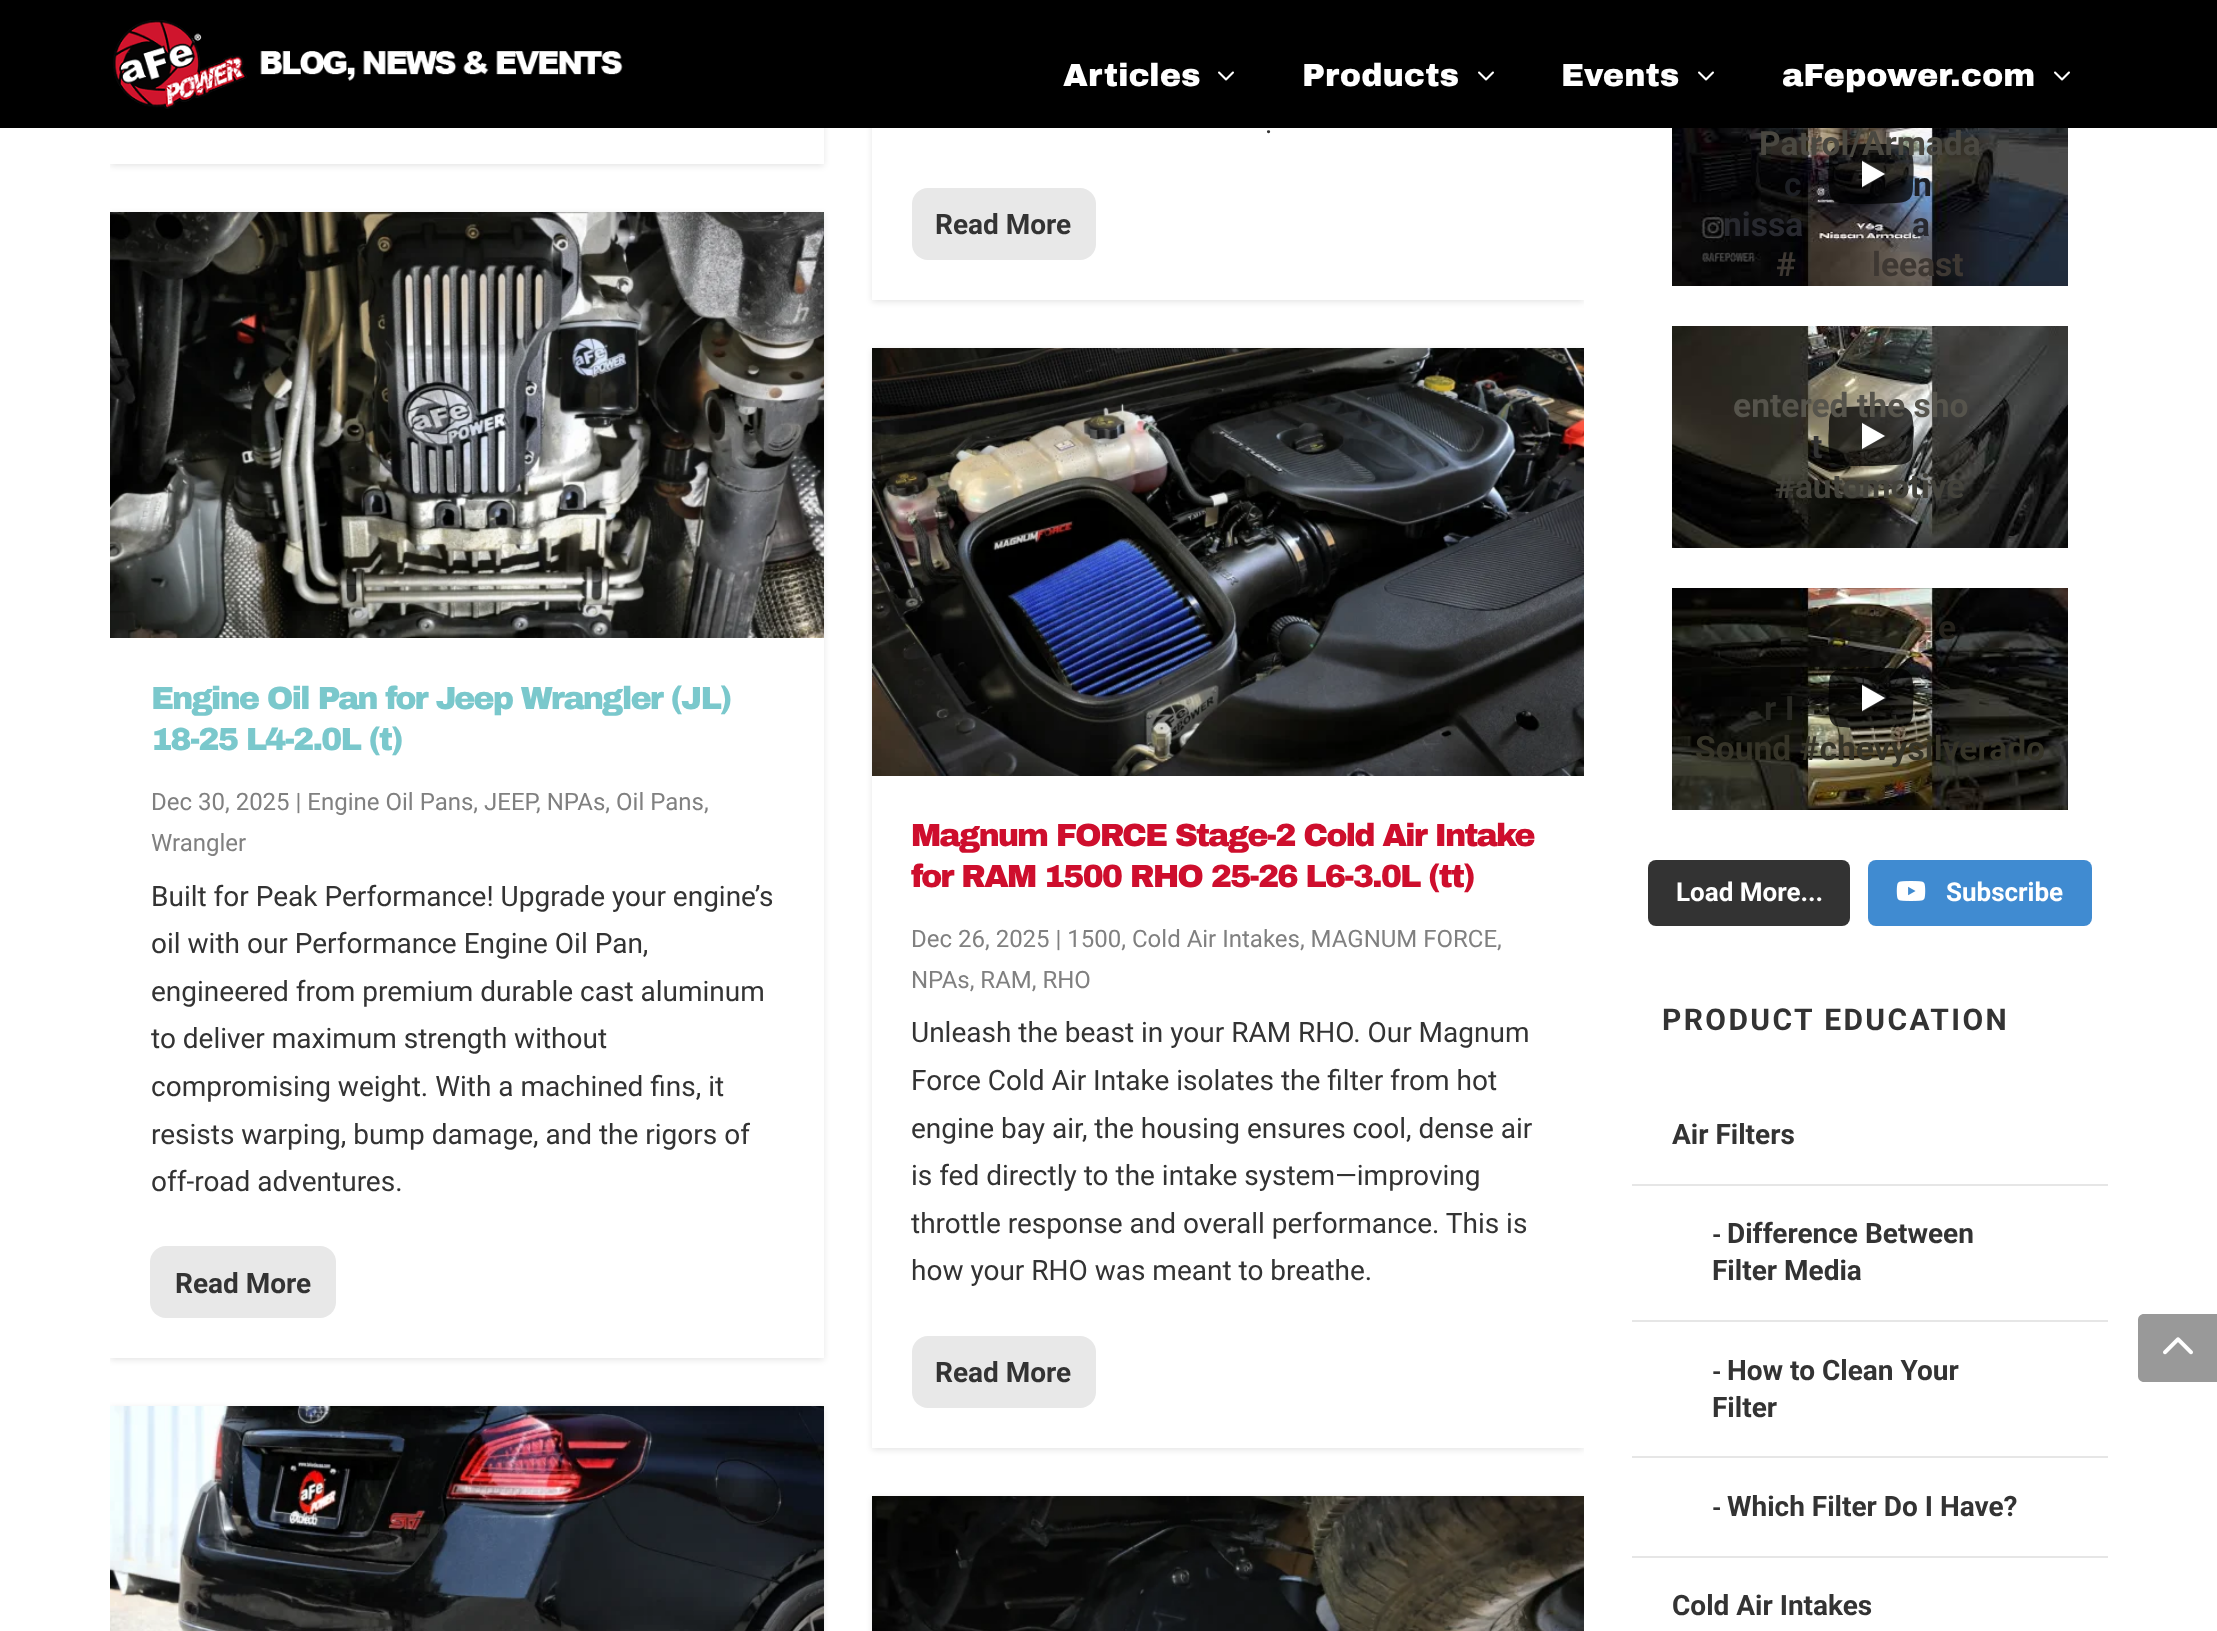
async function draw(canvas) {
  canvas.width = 2217;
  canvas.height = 1631;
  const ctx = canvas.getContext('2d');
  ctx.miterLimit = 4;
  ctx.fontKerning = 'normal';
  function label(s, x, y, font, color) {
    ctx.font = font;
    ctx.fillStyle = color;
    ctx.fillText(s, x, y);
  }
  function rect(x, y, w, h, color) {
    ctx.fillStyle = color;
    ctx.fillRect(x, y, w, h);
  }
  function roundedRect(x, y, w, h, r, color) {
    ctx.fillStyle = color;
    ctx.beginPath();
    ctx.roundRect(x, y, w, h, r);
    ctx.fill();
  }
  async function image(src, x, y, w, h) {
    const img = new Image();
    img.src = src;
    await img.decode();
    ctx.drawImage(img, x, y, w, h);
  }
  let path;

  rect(0, 0, 2217, 1631, '#fff');
  ctx.save();
  ctx.beginPath();
  ctx.rect(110, 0, 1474, 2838);
  ctx.clip();
  path = new Path2D('M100 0H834V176H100ZM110-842H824V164H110Z');
  ctx.clip(path, 'evenodd');
  ctx.fillStyle = '#0000001a';
  ctx.filter = 'blur(3px)';
  ctx.beginPath();
  ctx.rect(110, -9, 714, 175);
  ctx.fill();
  ctx.filter = 'none';
  ctx.restore();
  ctx.save();
  ctx.beginPath();
  ctx.rect(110, 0, 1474, 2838);
  ctx.clip();
  path = new Path2D('M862 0H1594V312H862ZM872-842H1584V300H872Z');
  ctx.clip(path, 'evenodd');
  ctx.fillStyle = '#0000001a';
  ctx.filter = 'blur(3px)';
  ctx.beginPath();
  ctx.rect(872, -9, 712, 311);
  ctx.fill();
  ctx.filter = 'none';
  ctx.restore();
  rect(0, 0, 2217, 128, '#000');
  await image('assets/img1.png', 113, 20, 510, 89);
  label('Articles', 1063, 86, '900 32px Archivo Black', '#fff');
  await image('assets/img2.png', 1218, 71, 16, 10);
  label('Products', 1302, 86, '900 32px Archivo Black', '#fff');
  await image('assets/img2.png', 1478, 71, 16, 10);
  label('Events', 1561, 86, '900 32px Archivo Black', '#fff');
  await image('assets/img2.png', 1698, 71, 16, 10);
  label('aFepower.com', 1782, 86, '900 32px Archivo Black', '#fff');
  await image('assets/img2.png', 2054, 71, 16, 10);
  ctx.save();
  ctx.beginPath();
  ctx.rect(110, 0, 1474, 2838);
  ctx.clip();
  path = new Path2D('M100 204H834V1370H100ZM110 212H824V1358H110Z');
  ctx.clip(path, 'evenodd');
  ctx.fillStyle = '#0000001a';
  ctx.filter = 'blur(3px)';
  ctx.beginPath();
  ctx.rect(110, 214, 714, 1146);
  ctx.fill();
  ctx.filter = 'none';
  ctx.restore();
  await image('assets/img3.png', 110, 212, 714, 426);
  ctx.letterSpacing = '-2px';
  label('Engine Oil Pan for Jeep Wrangler (JL)', 151, 709, '900 32px Archivo Black', '#7ac8cc');
  label('18-25 L4-2.0L (t)', 151, 750, '900 32px Archivo Black', '#7ac8cc');
  ctx.letterSpacing = '0px';
  label('Dec 30, 2025 | Engine Oil Pans, JEEP', 151, 810, '24px Roboto', '#808080');
  label(', NPAs, Oil Pans,', 536, 810, '24px Roboto', '#808080');
  label('Wrangler', 151, 851, '24px Roboto', '#808080');
  label('Built for Peak Performance! Upgrade your engine’s', 151, 906, '28px Roboto', '#333');
  label('oil with our Performance Engine Oil Pan,', 151, 953, '28px Roboto', '#333');
  label('engineered from premium durable cast aluminum', 151, 1001, '28px Roboto', '#333');
  label('to deliver maximum strength without', 151, 1048, '28px Roboto', '#333');
  label('compromising weight. With a machined fins, it', 151, 1096, '28px Roboto', '#333');
  label('resists warping, bump damage, and the rigors of', 151, 1144, '28px Roboto', '#333');
  label('off-road adventures.', 151, 1191, '28px Roboto', '#333');
  roundedRect(150, 1246, 186, 72, 16, '#e8e8e8');
  label('Read More', 175, 1293, 'bold 28px Roboto', '#333');
  ctx.save();
  ctx.beginPath();
  ctx.rect(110, 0, 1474, 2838);
  ctx.clip();
  ctx.fillStyle = '#0000001a';
  ctx.filter = 'blur(3px)';
  ctx.beginPath();
  ctx.rect(110, 1408, 714, 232);
  ctx.fill();
  ctx.filter = 'none';
  ctx.restore();
  await image('assets/img4.png', 110, 1406, 714, 225);
  label('.', 1265, 133, '28px Roboto', '#333');
  roundedRect(912, 188, 184, 72, 16, '#e8e8e8');
  label('Read More', 935, 234, 'bold 28px Roboto', '#333');
  ctx.save();
  ctx.beginPath();
  ctx.rect(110, 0, 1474, 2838);
  ctx.clip();
  path = new Path2D('M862 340H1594V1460H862ZM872 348H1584V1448H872Z');
  ctx.clip(path, 'evenodd');
  ctx.fillStyle = '#0000001a';
  ctx.filter = 'blur(3px)';
  ctx.beginPath();
  ctx.rect(872, 350, 712, 1100);
  ctx.fill();
  ctx.filter = 'none';
  ctx.restore();
  await image('assets/img5.png', 872, 348, 712, 428);
  ctx.letterSpacing = '-2px';
  label('Magnum FORCE Stage-2 Cold Air Intake', 911, 846, '900 32px Archivo Black', '#ce0e2d');
  label('for RAM 1500 RHO 25-26 L6-3.0L (tt)', 911, 887, '900 32px Archivo Black', '#ce0e2d');
  ctx.letterSpacing = '0px';
  label('Dec 26, 2025 | 1500, Cold Air Intakes, MAGNUM FORCE,', 911, 947, '24px Roboto', '#808080');
  label('NPAs, RAM, RHO', 911, 988, '24px Roboto', '#808080');
  label('Unleash the beast in your RAM RHO. Our Magnum', 911, 1042, '28px Roboto', '#333');
  label('Force Cold Air Intake isolates the filter from hot', 911, 1090, '28px Roboto', '#333');
  label('engine bay air, the housing ensures cool, dense air', 911, 1138, '28px Roboto', '#333');
  label('is fed directly to the intake system—improving', 911, 1185, '28px Roboto', '#333');
  label('throttle response and overall performance. This is', 911, 1233, '28px Roboto', '#333');
  label('how your RHO was meant to breathe.', 911, 1280, '28px Roboto', '#333');
  roundedRect(912, 1336, 184, 72, 16, '#e8e8e8');
  label('Read More', 935, 1382, 'bold 28px Roboto', '#333');
  ctx.save();
  ctx.beginPath();
  ctx.rect(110, 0, 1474, 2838);
  ctx.clip();
  ctx.fillStyle = '#0000001a';
  ctx.filter = 'blur(3px)';
  ctx.beginPath();
  ctx.rect(872, 1498, 712, 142);
  ctx.fill();
  ctx.filter = 'none';
  ctx.restore();
  await image('assets/img6.png', 872, 1496, 712, 135);
  await image('assets/img7.png', 1672, 128, 396, 158);
  ctx.fillStyle = '#fff';
  path = new Path2D('M1862 188V160L1886 174Z');
  ctx.fill(path);
  ctx.fillStyle = '#000000bf';
  path = new Path2D('M1912 153C1911 150 1909 148 1906 146C1901 144 1896 145 1891 144H1867L1846 145C1830 146 1829 151 1829 166C1828 176 1828 186 1830 195C1831 198 1833 201 1836 202C1841 204 1846 203 1851 204H1872L1896 203C1912 202 1913 197 1913 182C1914 173 1914 162 1912 153ZM1862 187V161L1885 174Z');
  ctx.fill(path);
  label('Patrol/Armada', 1759, 155, 'bold 33.6px Roboto', '#4a4841');
  label('c', 1784, 196, 'bold 33.6px Roboto', '#1d1f24');
  label('n', 1913, 196, 'bold 33.6px Roboto', '#1d1f24');
  label('nissa', 1723, 236, 'bold 33.6px Roboto', '#28292f');
  label('a', 1912, 236, 'bold 33.6px Roboto', '#28292f');
  label('#', 1776, 276, 'bold 33.6px Roboto', '#3e3833');
  label('leeast', 1872, 276, 'bold 33.6px Roboto', '#3e3833');
  await image('assets/img8.png', 1672, 326, 396, 222);
  ctx.fillStyle = '#fff';
  path = new Path2D('M1862 450V422L1886 436Z');
  ctx.fill(path);
  ctx.fillStyle = '#000000bf';
  path = new Path2D('M1912 415C1911 412 1909 410 1906 408C1901 406 1896 407 1891 406H1867L1846 407C1830 408 1829 413 1829 428C1828 438 1828 448 1830 457C1831 460 1833 463 1836 464C1841 466 1846 465 1851 466H1872L1896 465C1912 464 1913 459 1913 444C1914 435 1914 424 1912 415ZM1862 449V423L1885 436Z');
  ctx.fill(path);
  label('entered the sho', 1733, 417, 'bold 33.6px Roboto', '#56544c');
  label('t', 1811, 458, 'bold 33.6px Roboto', '#333');
  label('#automotive', 1775, 498, 'bold 33.6px Roboto', '#43423b');
  await image('assets/img9.png', 1672, 588, 396, 222);
  label('e', 1938, 639, 'bold 33.6px Roboto', '#25221c');
  label('r I', 1764, 720, 'bold 33.6px Roboto', '#282823');
  label('Sound #chevysilverado', 1695, 760, 'bold 33.6px Roboto', '#363428');
  ctx.fillStyle = '#fff';
  path = new Path2D('M1862 712V684L1886 698Z');
  ctx.fill(path);
  ctx.fillStyle = '#000000bf';
  path = new Path2D('M1912 677C1911 674 1909 672 1906 670C1901 668 1896 669 1891 668H1867L1846 669C1830 670 1829 675 1829 690C1828 700 1828 710 1830 719C1831 722 1833 725 1836 726C1841 728 1846 727 1851 728H1872L1896 727C1912 726 1913 721 1913 706C1914 697 1914 686 1912 677ZM1862 711V685L1885 698Z');
  ctx.fill(path);
  roundedRect(1648, 860, 202, 66, 8, '#333');
  label('Load More...', 1676, 901, 'bold 26px Roboto', '#fff');
  roundedRect(1868, 860, 224, 66, 8, '#408bd1');
  await image('assets/img10.png', 1896, 881, 30, 20);
  label('Subscribe', 1946, 901, 'bold 26px Roboto', '#fff');
  ctx.letterSpacing = '2.4px';
  label('PRODUCT EDUCATION', 1662, 1030, 'bold 30px Roboto', '#333');
  rect(1632, 1556, 476, 2, '#e6e6e6');
  ctx.letterSpacing = '0px';
  label('Air Filters', 1672, 1144, 'bold 28px Roboto', '#333');
  rect(1632, 1184, 476, 2, '#e6e6e6');
  rect(1632, 1320, 476, 2, '#e6e6e6');
  label('-', 1712, 1243, 'bold 24px Roboto', '#333');
  label('Difference Between', 1727, 1243, 'bold 28px Roboto', '#333');
  label('Filter Media', 1712, 1280, 'bold 28px Roboto', '#333');
  rect(1632, 1456, 476, 2, '#e6e6e6');
  label('-', 1712, 1380, 'bold 24px Roboto', '#333');
  label('How to Clean Your', 1727, 1380, 'bold 28px Roboto', '#333');
  label('Filter', 1712, 1417, 'bold 28px Roboto', '#333');
  label('-', 1712, 1516, 'bold 24px Roboto', '#333');
  label('Which Filter Do I Have?', 1727, 1516, 'bold 28px Roboto', '#333');
  label('Cold Air Intakes', 1672, 1615, 'bold 28px Roboto', '#333');
  ctx.fillStyle = '#999';
  path = new Path2D('M2144 1314H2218V1382H2144C2140.5 1382 2138 1379.5 2138 1376V1320C2138 1316.5 2140.5 1314 2144 1314Z');
  ctx.fill(path);
  await image('assets/img11.png', 2163, 1337, 30, 18);
}

draw(document.querySelector('canvas'));
